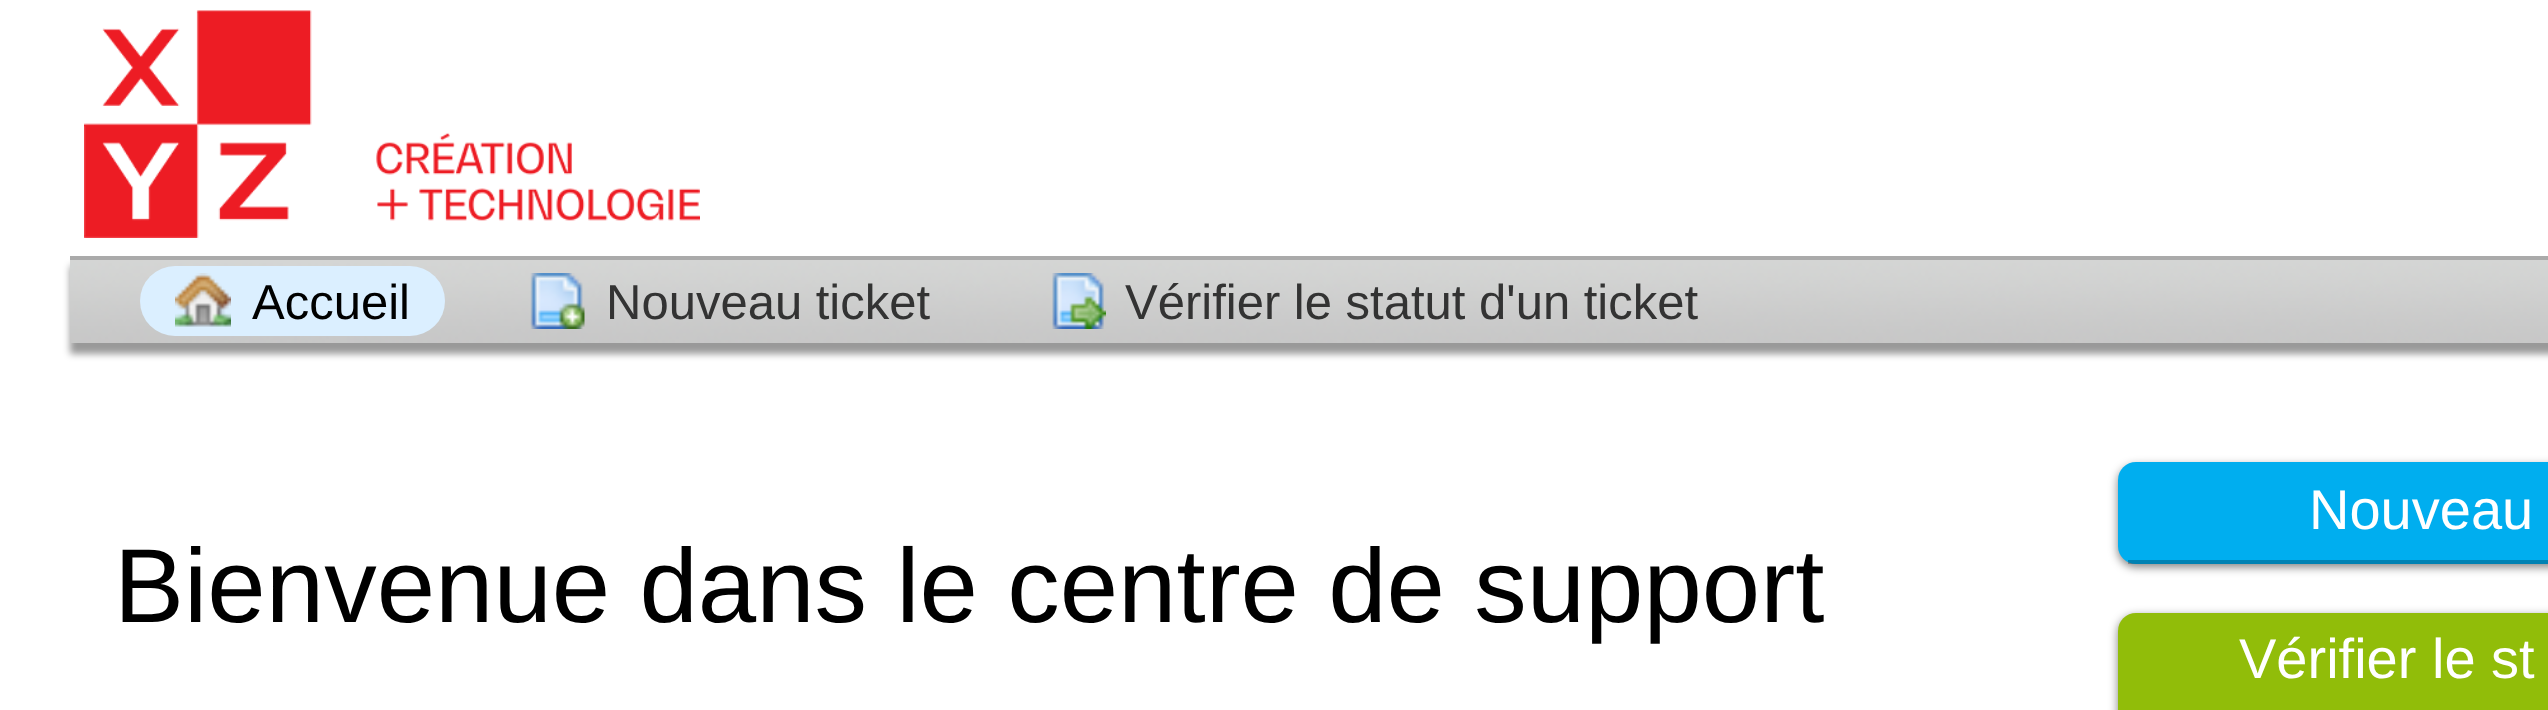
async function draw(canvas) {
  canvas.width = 2548;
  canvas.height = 710;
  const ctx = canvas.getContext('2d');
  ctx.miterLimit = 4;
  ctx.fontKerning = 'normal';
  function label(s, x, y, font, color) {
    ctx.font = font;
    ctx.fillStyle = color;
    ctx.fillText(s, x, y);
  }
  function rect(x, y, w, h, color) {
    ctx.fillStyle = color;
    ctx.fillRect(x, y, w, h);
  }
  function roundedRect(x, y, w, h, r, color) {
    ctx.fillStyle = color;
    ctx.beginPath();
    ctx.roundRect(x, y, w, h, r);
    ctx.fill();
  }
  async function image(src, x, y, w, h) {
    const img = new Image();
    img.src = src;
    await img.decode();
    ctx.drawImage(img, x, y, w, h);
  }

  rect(0, 0, 2548, 710, '#fff');
  await image('assets/img1.png', 84, 10, 616, 228);
  ctx.fillStyle = '#00000066';
  ctx.filter = 'blur(3.5px)';
  ctx.beginPath();
  ctx.rect(70, 266, 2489, 88);
  ctx.fill();
  ctx.filter = 'none';
  await image('assets/img2.png', 70, 260, 2478, 83);
  rect(70, 256, 2478, 4, '#aaa');
  roundedRect(140, 266, 305, 70, 35, '#dbefff');
  await image('assets/img3.png', 175, 273, 56, 54);
  label('Accueil', 252, 319, '49px Liberation Sans', '#000');
  await image('assets/img4.png', 530, 273, 55, 56);
  label('Nouveau ticket', 606, 319, '49px Liberation Sans', '#333');
  await image('assets/img5.png', 1052, 273, 54, 56);
  label('Vérifier le statut d\'un ticket', 1125, 319, '49px Liberation Sans', '#333');
  label('Bienvenue dans le centre de support', 114, 622, '105px Liberation Sans', '#000');
  ctx.fillStyle = '#00000080';
  ctx.filter = 'blur(5px)';
  ctx.beginPath();
  ctx.roundRect(2118, 466, 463, 101, 18);
  ctx.fill();
  ctx.filter = 'none';
  roundedRect(2118, 462, 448, 102, 18, '#00aeef');
  rect(2128, 560, 420, 4, '#00000040');
  label('Nouveau', 2309, 529, '56px Liberation Sans', '#fff');
  ctx.fillStyle = '#00000080';
  ctx.filter = 'blur(5px)';
  ctx.beginPath();
  ctx.roundRect(2118, 616, 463, 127, 18);
  ctx.fill();
  ctx.filter = 'none';
  roundedRect(2118, 613, 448, 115, 18, '#91bd09');
  label('Vérifier le st', 2239, 678, '56px Liberation Sans', '#fff');
}

draw(document.querySelector('canvas'));
